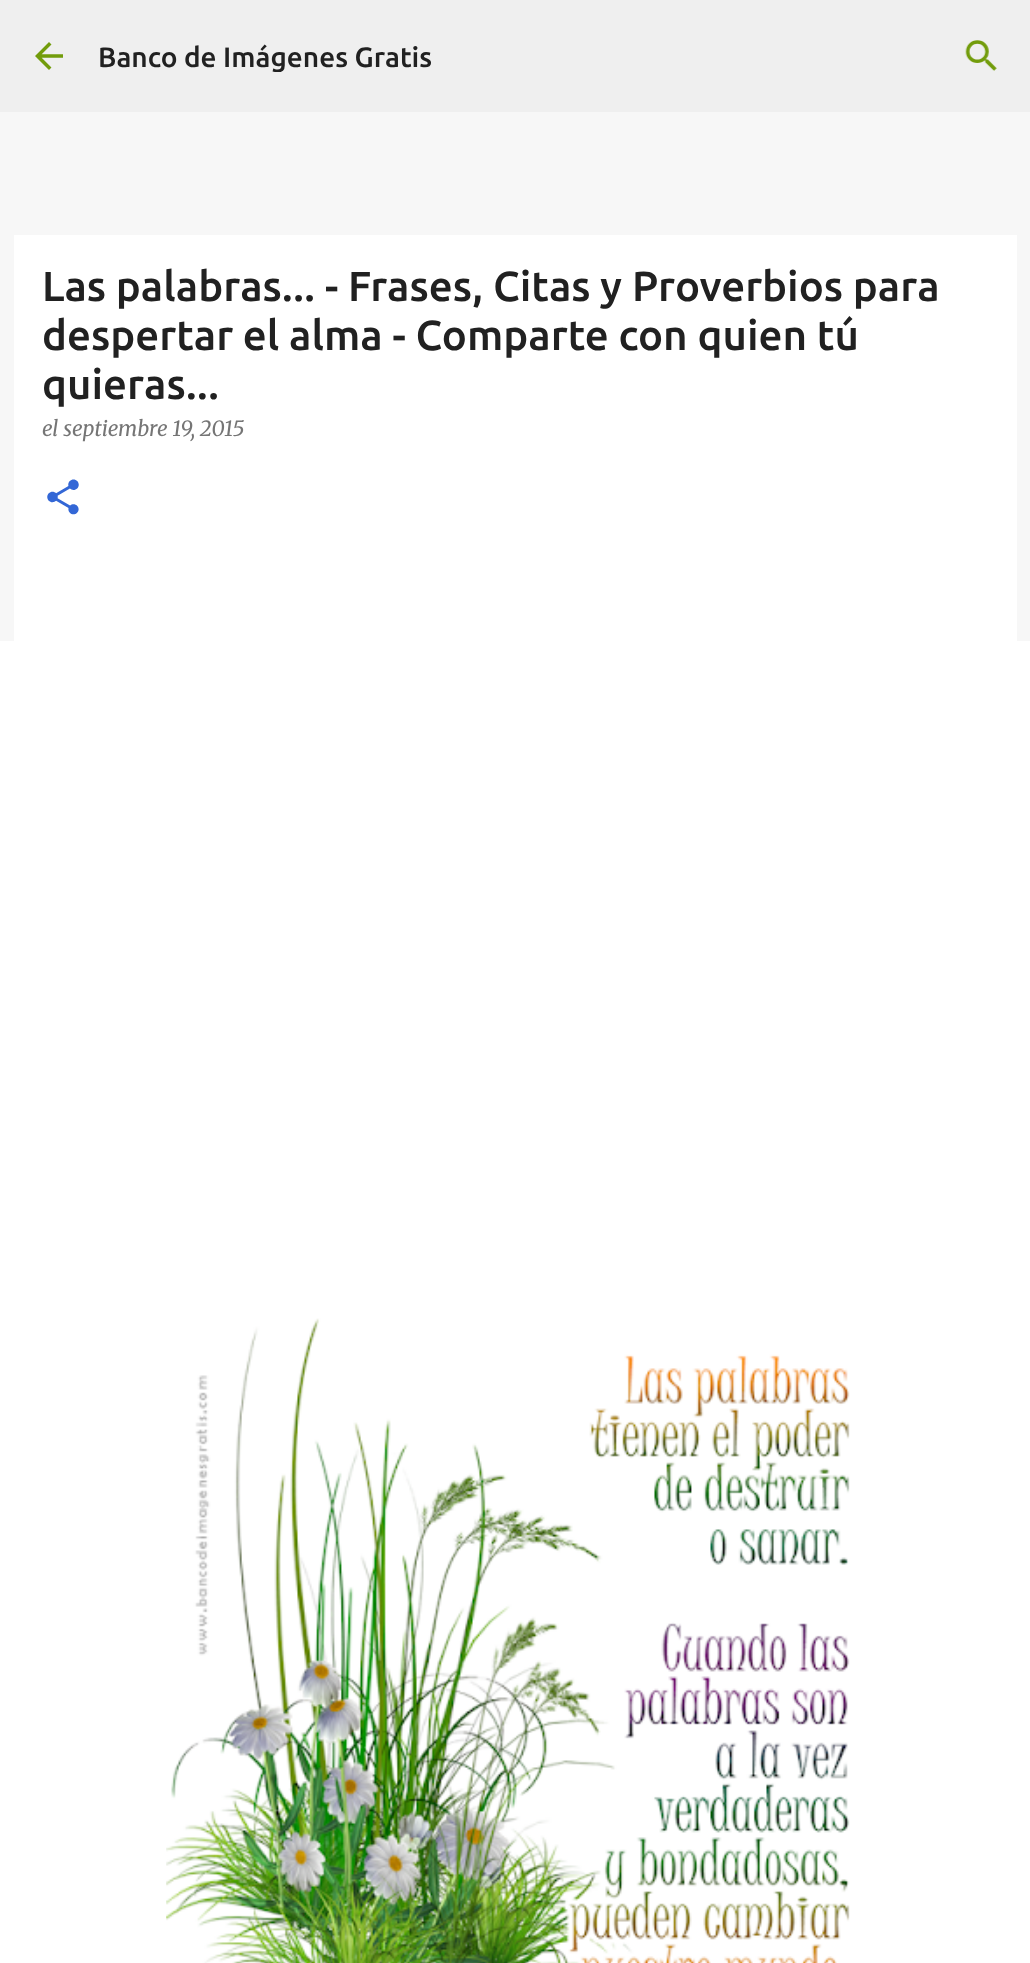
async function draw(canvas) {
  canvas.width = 1030;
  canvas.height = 1963;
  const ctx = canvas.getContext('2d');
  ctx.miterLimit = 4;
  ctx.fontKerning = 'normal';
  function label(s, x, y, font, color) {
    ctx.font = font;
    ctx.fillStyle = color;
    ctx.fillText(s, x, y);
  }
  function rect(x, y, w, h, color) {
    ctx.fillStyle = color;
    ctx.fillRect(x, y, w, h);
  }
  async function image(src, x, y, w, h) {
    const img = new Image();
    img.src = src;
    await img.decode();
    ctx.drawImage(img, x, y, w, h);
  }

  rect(0, 0, 1030, 1963, '#f7f7f7');
  rect(0, 0, 1030, 112, '#efefef');
  await image('assets/img1.png', 35, 42, 28, 28);
  ctx.save();
  ctx.beginPath();
  ctx.rect(98, 40, 835, 32);
  ctx.clip();
  label('Banco de Imágenes Gratis', 98, 67, '500 28px Ubuntu', '#212121');
  ctx.restore();
  await image('assets/img2.png', 965, 40, 32, 31);
  rect(0, 641, 1030, 1322, '#fff');
  rect(14, 235, 1003, 406, '#fff');
  label('Las palabras... - Frases, Citas y Proverbios para', 42, 301, '500 42px Ubuntu', '#212121');
  label('despertar el alma - Comparte con quien tú', 42, 350, '500 42px Ubuntu', '#212121');
  label('quieras...', 42, 399, '500 42px Ubuntu', '#212121');
  label('el septiembre 19, 2015', 42, 436, 'italic 21px Merriweather', '#757575');
  await image('assets/img3.png', 47, 479, 32, 36);
  await image('assets/img4.png', 166, 1318, 684, 645);
}

draw(document.querySelector('canvas'));
